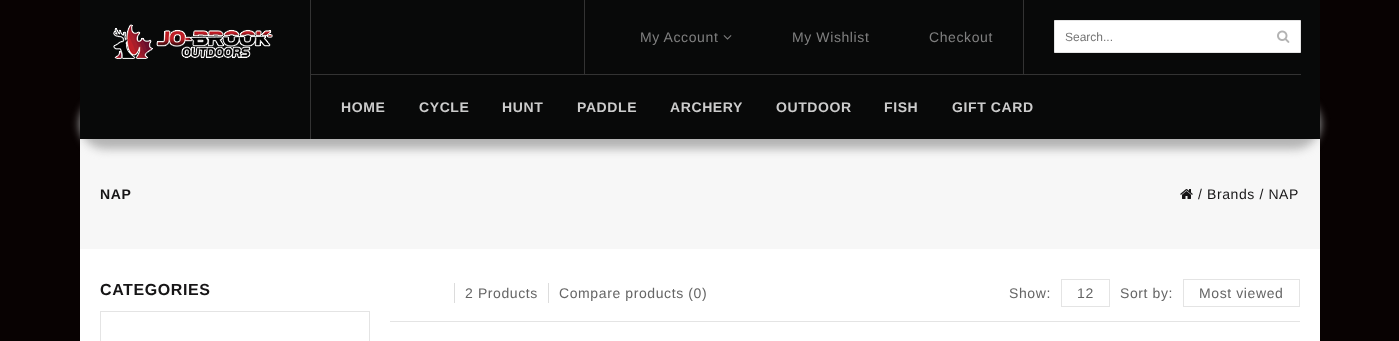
async function draw(canvas) {
  canvas.width = 1399;
  canvas.height = 341;
  const ctx = canvas.getContext('2d');
  ctx.miterLimit = 4;
  ctx.fontKerning = 'normal';
  function label(s, x, y, font, color) {
    ctx.font = font;
    ctx.fillStyle = color;
    ctx.fillText(s, x, y);
  }
  function rect(x, y, w, h, color) {
    ctx.fillStyle = color;
    ctx.fillRect(x, y, w, h);
  }
  async function image(src, x, y, w, h) {
    const img = new Image();
    img.src = src;
    await img.decode();
    ctx.drawImage(img, x, y, w, h);
  }

  rect(0, 0, 1399, 341, '#080202');
  rect(80, 249, 1240, 92, '#fff');
  rect(80, 139, 1240, 110, '#f7f7f7');
  ctx.fillStyle = '#b3b3b3';
  ctx.filter = 'blur(5px)';
  ctx.beginPath();
  ctx.roundRect(80, 99, 1240, 50, 25);
  ctx.fill();
  ctx.filter = 'none';
  rect(80, 0, 1240, 139, '#080909');
  await image('assets/img1.png', 113, 24, 160, 35);
  rect(310, 0, 1, 139, '#333');
  rect(584, 0, 1, 74, '#333');
  ctx.letterSpacing = '0.6px';
  label('My Account', 640, 42, '14px Arimo', '#808080');
  await image('assets/img2.png', 723, 35, 9, 5);
  label('My Wishlist', 792, 42, '14px Arimo', '#808080');
  label('Checkout', 929, 42, '14px Arimo', '#808080');
  rect(1023, 0, 1, 74, '#333');
  ctx.fillStyle = '#fff';
  ctx.beginPath();
  ctx.rect(1054.5, 20.5, 246, 32);
  ctx.fill();
  ctx.strokeStyle = '#e4e4e4';
  ctx.stroke();
  ctx.letterSpacing = '0px';
  label('Search...', 1065, 41, '12px Liberation Sans', '#757575');
  await image('assets/img3.png', 1277, 30, 13, 13);
  rect(311, 74, 990, 1, '#333');
  ctx.letterSpacing = '0.6px';
  label('HOME', 341, 112, 'bold 14px Arimo', '#ccc');
  label('CYCLE', 419, 112, 'bold 14px Arimo', '#ccc');
  label('HUNT', 502, 112, 'bold 14px Arimo', '#ccc');
  label('PADDLE', 577, 112, 'bold 14px Arimo', '#ccc');
  label('ARCHERY', 670, 112, 'bold 14px Arimo', '#ccc');
  label('OUTDOOR', 776, 112, 'bold 14px Arimo', '#ccc');
  label('FISH', 884, 112, 'bold 14px Arimo', '#ccc');
  label('GIFT CARD', 952, 112, 'bold 14px Arimo', '#ccc');
  label('NAP', 100, 199, 'bold 14px Arimo', '#161516');
  await image('assets/img4.png', 1180, 189, 13, 10);
  label('/ Brands / NAP', 1198, 199, '14px Arimo', '#161516');
  label('CATEGORIES', 100, 295, 'bold 16px Arimo', '#161516');
  ctx.strokeRect(100.5, 311.5, 269, 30);
  rect(390, 321, 910, 1, '#e4e4e4');
  rect(454, 283, 1, 20, '#dcdcdc');
  label('2 Products', 465, 298, '14px Arimo', '#656565');
  rect(548, 283, 1, 20, '#ddd');
  label('Compare products (0)', 559, 298, '14px Arimo', '#656565');
  label('Show:', 1009, 298, '14px Arimo', '#656565');
  ctx.strokeRect(1061.5, 279.5, 48, 27);
  label('12', 1077, 298, '14px Arimo', '#656565');
  label('Sort by:', 1120, 298, '14px Arimo', '#656565');
  ctx.strokeRect(1183.5, 279.5, 116, 27);
  label('Most viewed', 1199, 298, '14px Arimo', '#656565');
}

draw(document.querySelector('canvas'));
